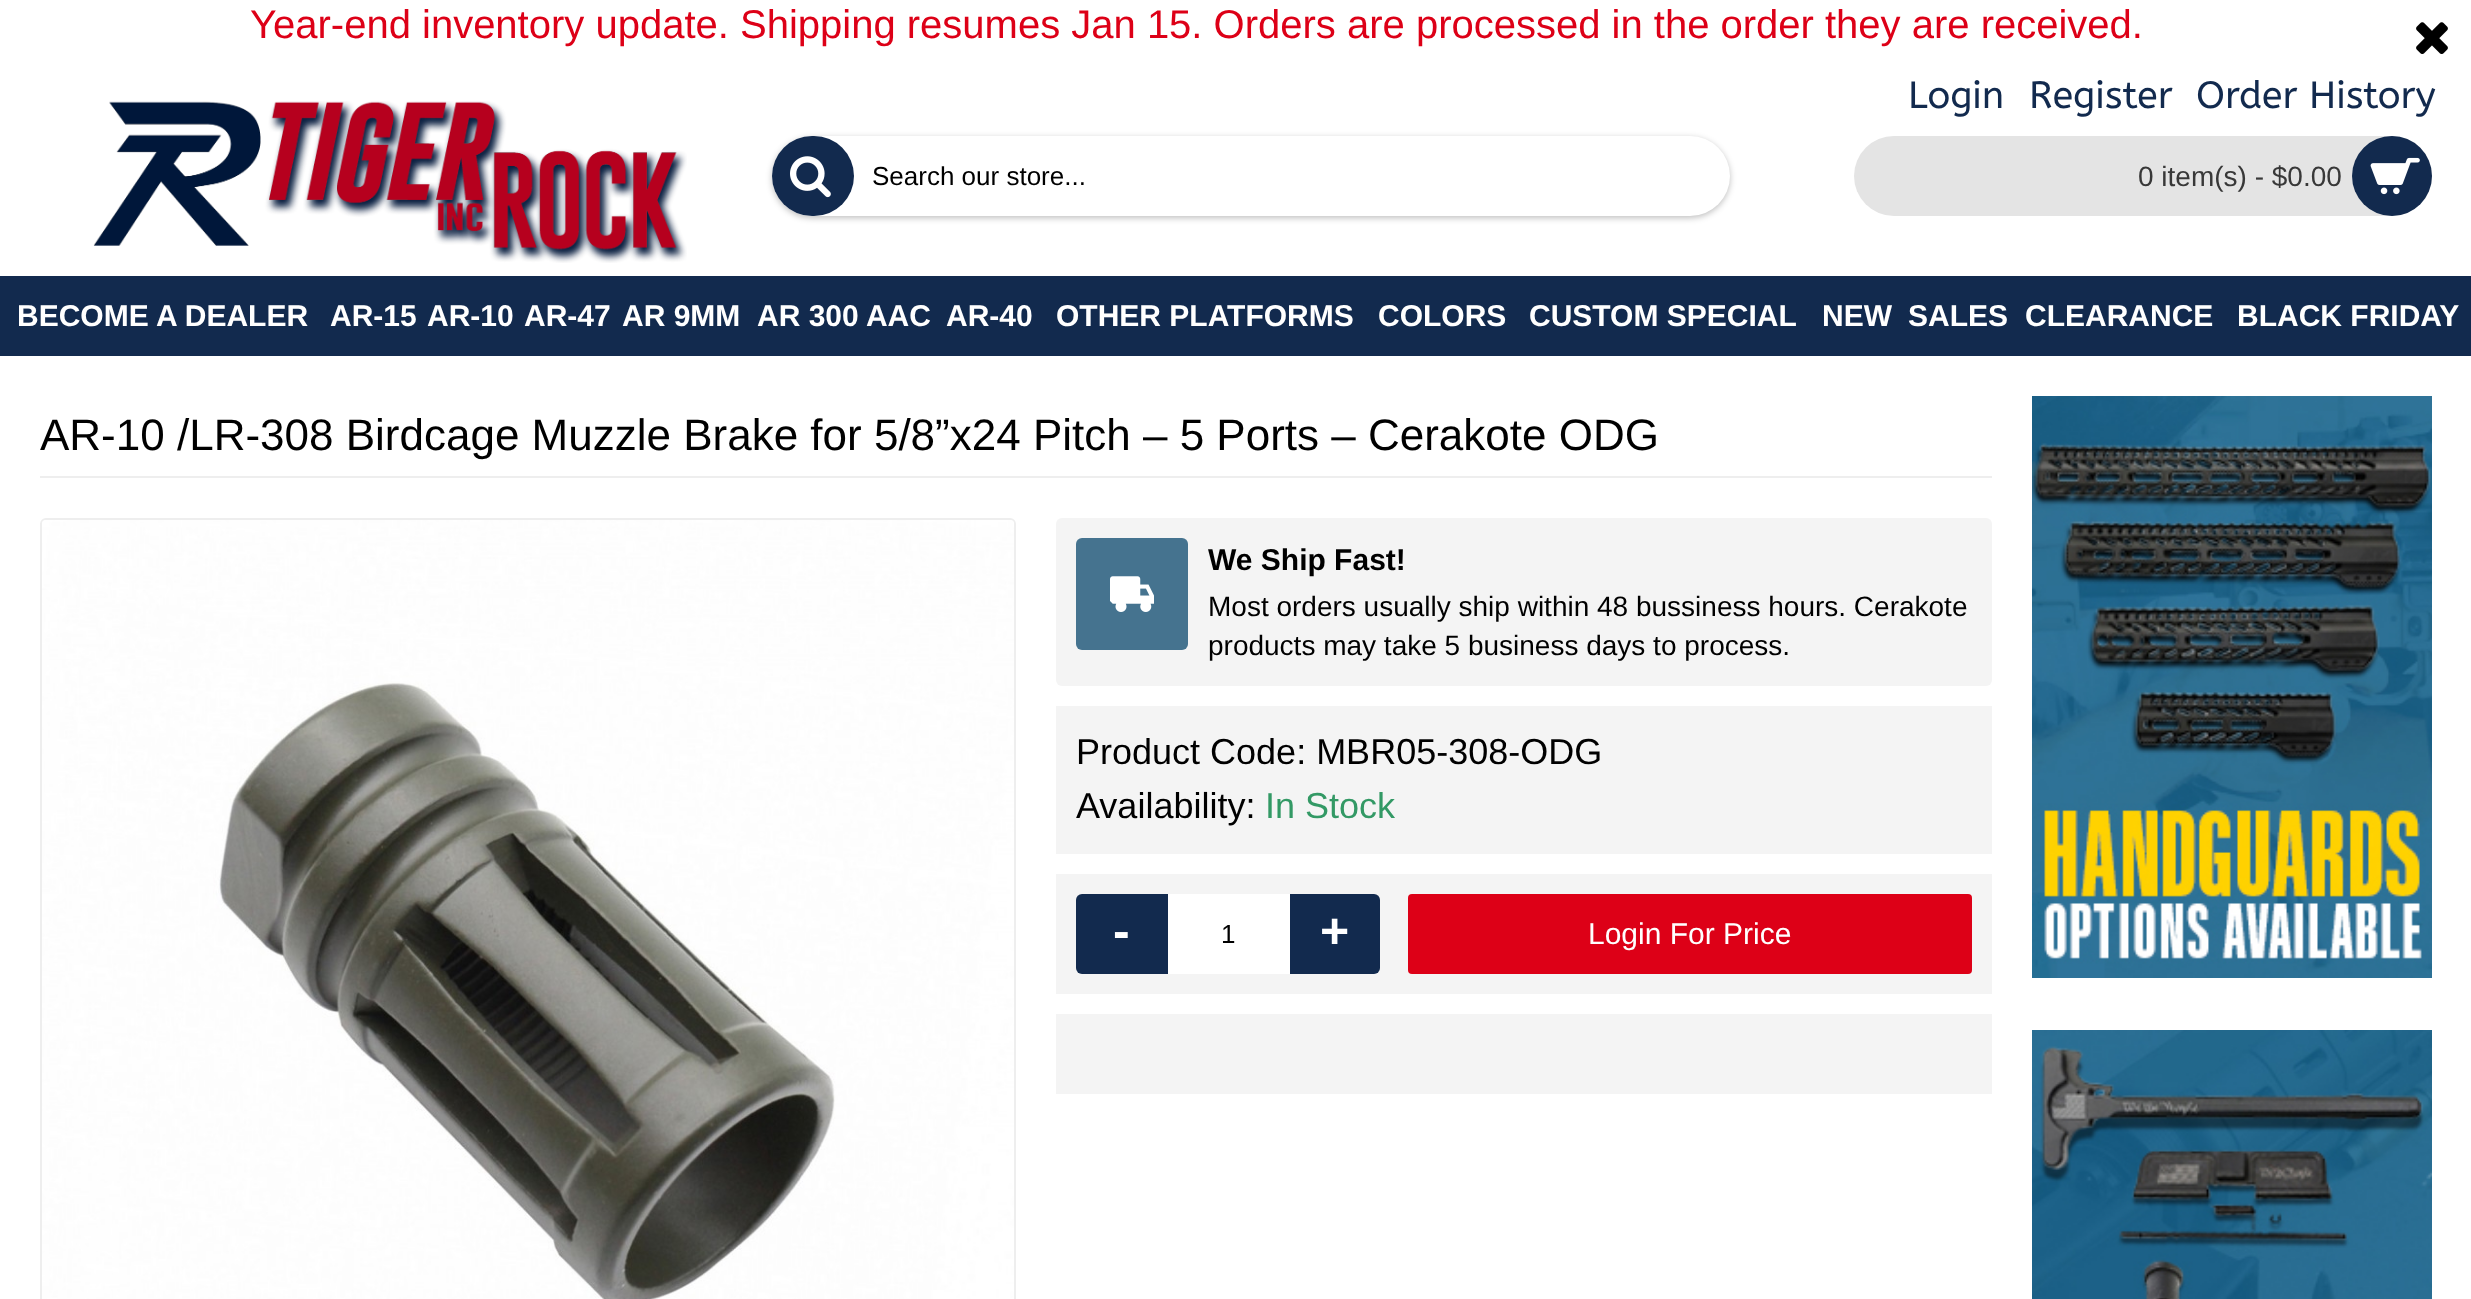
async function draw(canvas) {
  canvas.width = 2471;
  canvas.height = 1299;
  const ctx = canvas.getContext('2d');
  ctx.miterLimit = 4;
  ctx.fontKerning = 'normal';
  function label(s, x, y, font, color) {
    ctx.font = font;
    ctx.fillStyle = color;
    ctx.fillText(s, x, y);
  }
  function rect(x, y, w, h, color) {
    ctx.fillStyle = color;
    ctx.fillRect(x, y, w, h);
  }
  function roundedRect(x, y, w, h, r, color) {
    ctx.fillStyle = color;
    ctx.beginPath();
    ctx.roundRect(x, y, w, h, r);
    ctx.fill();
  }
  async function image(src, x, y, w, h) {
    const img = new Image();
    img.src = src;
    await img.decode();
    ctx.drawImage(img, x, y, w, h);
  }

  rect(0, 0, 2471, 1299, '#fff');
  label('Year-end inventory update. Shipping resumes Jan 15. Orders are processed in the order they are received.', 250, 38, '40px Arimo', '#dd0017');
  await image('assets/img1.png', 2416, 22, 32, 32);
  label('Login', 1908, 108, '38px ABeeZee', '#122a4e');
  label('Register', 2029, 108, '38px ABeeZee', '#122a4e');
  label('Order History', 2196, 108, '38px ABeeZee', '#122a4e');
  await image('assets/img2.png', 93, 101, 594, 162);
  ctx.fillStyle = '#00000040';
  ctx.filter = 'blur(3px)';
  ctx.beginPath();
  ctx.roundRect(772, 138, 958, 80, 40);
  ctx.fill();
  ctx.filter = 'none';
  roundedRect(772, 136, 958, 80, 40, '#fff');
  roundedRect(772, 136, 82, 80, 40, '#122a4e');
  await image('assets/img3.png', 790, 156, 41, 42);
  label('Search our store...', 872, 185, '26px Liberation Sans', '#000');
  roundedRect(1854, 136, 578, 80, 40, '#e4e4e4');
  label('0 item(s) - $0.00', 2138, 186, '28px Liberation Sans', '#383838');
  ctx.fillStyle = '#122a4e';
  ctx.beginPath();
  ctx.arc(2392, 176, 40, 0, 2 * Math.PI);
  ctx.fill();
  await image('assets/img4.png', 2370, 157, 50, 38);
  rect(0, 276, 2471, 80, '#122a4e');
  label('BECOME A DEALER', 17, 326, 'bold 30px Liberation Sans', '#fff');
  label('AR-15', 330, 326, 'bold 30px Liberation Sans', '#fff');
  label('AR-10', 427, 326, 'bold 30px Liberation Sans', '#fff');
  label('AR-47', 524, 326, 'bold 30px Liberation Sans', '#fff');
  label('AR 9MM', 622, 326, 'bold 30px Liberation Sans', '#fff');
  label('AR 300 AAC', 757, 326, 'bold 30px Liberation Sans', '#fff');
  label('AR-40', 946, 326, 'bold 30px Liberation Sans', '#fff');
  label('OTHER PLATFORMS', 1056, 326, 'bold 30px Liberation Sans', '#fff');
  label('COLORS', 1378, 326, 'bold 30px Liberation Sans', '#fff');
  label('CUSTOM SPECIAL', 1529, 326, 'bold 30px Liberation Sans', '#fff');
  label('NEW', 1822, 326, 'bold 30px Liberation Sans', '#fff');
  label('SALES', 1908, 326, 'bold 30px Liberation Sans', '#fff');
  label('CLEARANCE', 2025, 326, 'bold 30px Liberation Sans', '#fff');
  label('BLACK FRIDAY', 2237, 326, 'bold 30px Liberation Sans', '#fff');
  rect(40, 476, 1952, 2, '#eee');
  label('AR-10 /LR-308 Birdcage Muzzle Brake for 5/8”x24 Pitch – 5 Ports – Cerakote ODG', 40, 450, '44px Liberation Sans', '#000');
  ctx.beginPath();
  ctx.roundRect(41, 519, 974, 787, 5);
  ctx.strokeStyle = '#eee';
  ctx.lineWidth = 2;
  ctx.stroke();
  await image('assets/img5.png', 42, 520, 972, 779);
  roundedRect(1056, 518, 936, 168, 6, '#f4f4f4');
  roundedRect(1076, 538, 112, 112, 6, '#45738f');
  await image('assets/img6.png', 1110, 576, 44, 36);
  label('We Ship Fast!', 1208, 570, 'bold 30px Liberation Sans', '#000');
  label('Most orders usually ship within 48 bussiness hours. Cerakote', 1208, 616, '28px Liberation Sans', '#000');
  label('products may take 5 business days to process.', 1208, 655, '28px Liberation Sans', '#000');
  rect(1056, 706, 936, 148, '#f4f4f4');
  label('Product Code: MBR05-308-ODG', 1076, 764, '36px Liberation Sans', '#000');
  label('Availability:', 1076, 818, '36px Liberation Sans', '#000');
  label('In Stock', 1265, 818, '36px Liberation Sans', '#339965');
  rect(1056, 874, 936, 120, '#f4f4f4');
  ctx.fillStyle = '#122a4e';
  ctx.beginPath();
  ctx.roundRect(1076, 894, 92, 80, [6, 0, 0, 6]);
  ctx.fill();
  label('-', 1113, 948, 'bold 50px Liberation Sans', '#fff');
  rect(1168, 894, 122, 80, '#fff');
  label('1', 1221, 943, '26px Liberation Sans', '#000');
  ctx.fillStyle = '#122a4e';
  ctx.beginPath();
  ctx.roundRect(1290, 894, 90, 80, [0, 6, 6, 0]);
  ctx.fill();
  label('+', 1320, 948, 'bold 50px Liberation Sans', '#fff');
  roundedRect(1408, 894, 564, 80, 4, '#dd0017');
  label('Login For Price', 1588, 944, '30px Liberation Sans', '#fff');
  rect(1056, 1014, 936, 80, '#f4f4f4');
  await image('assets/img7.png', 2032, 396, 400, 582);
  await image('assets/img8.png', 2032, 1030, 400, 269);
}

draw(document.querySelector('canvas'));
